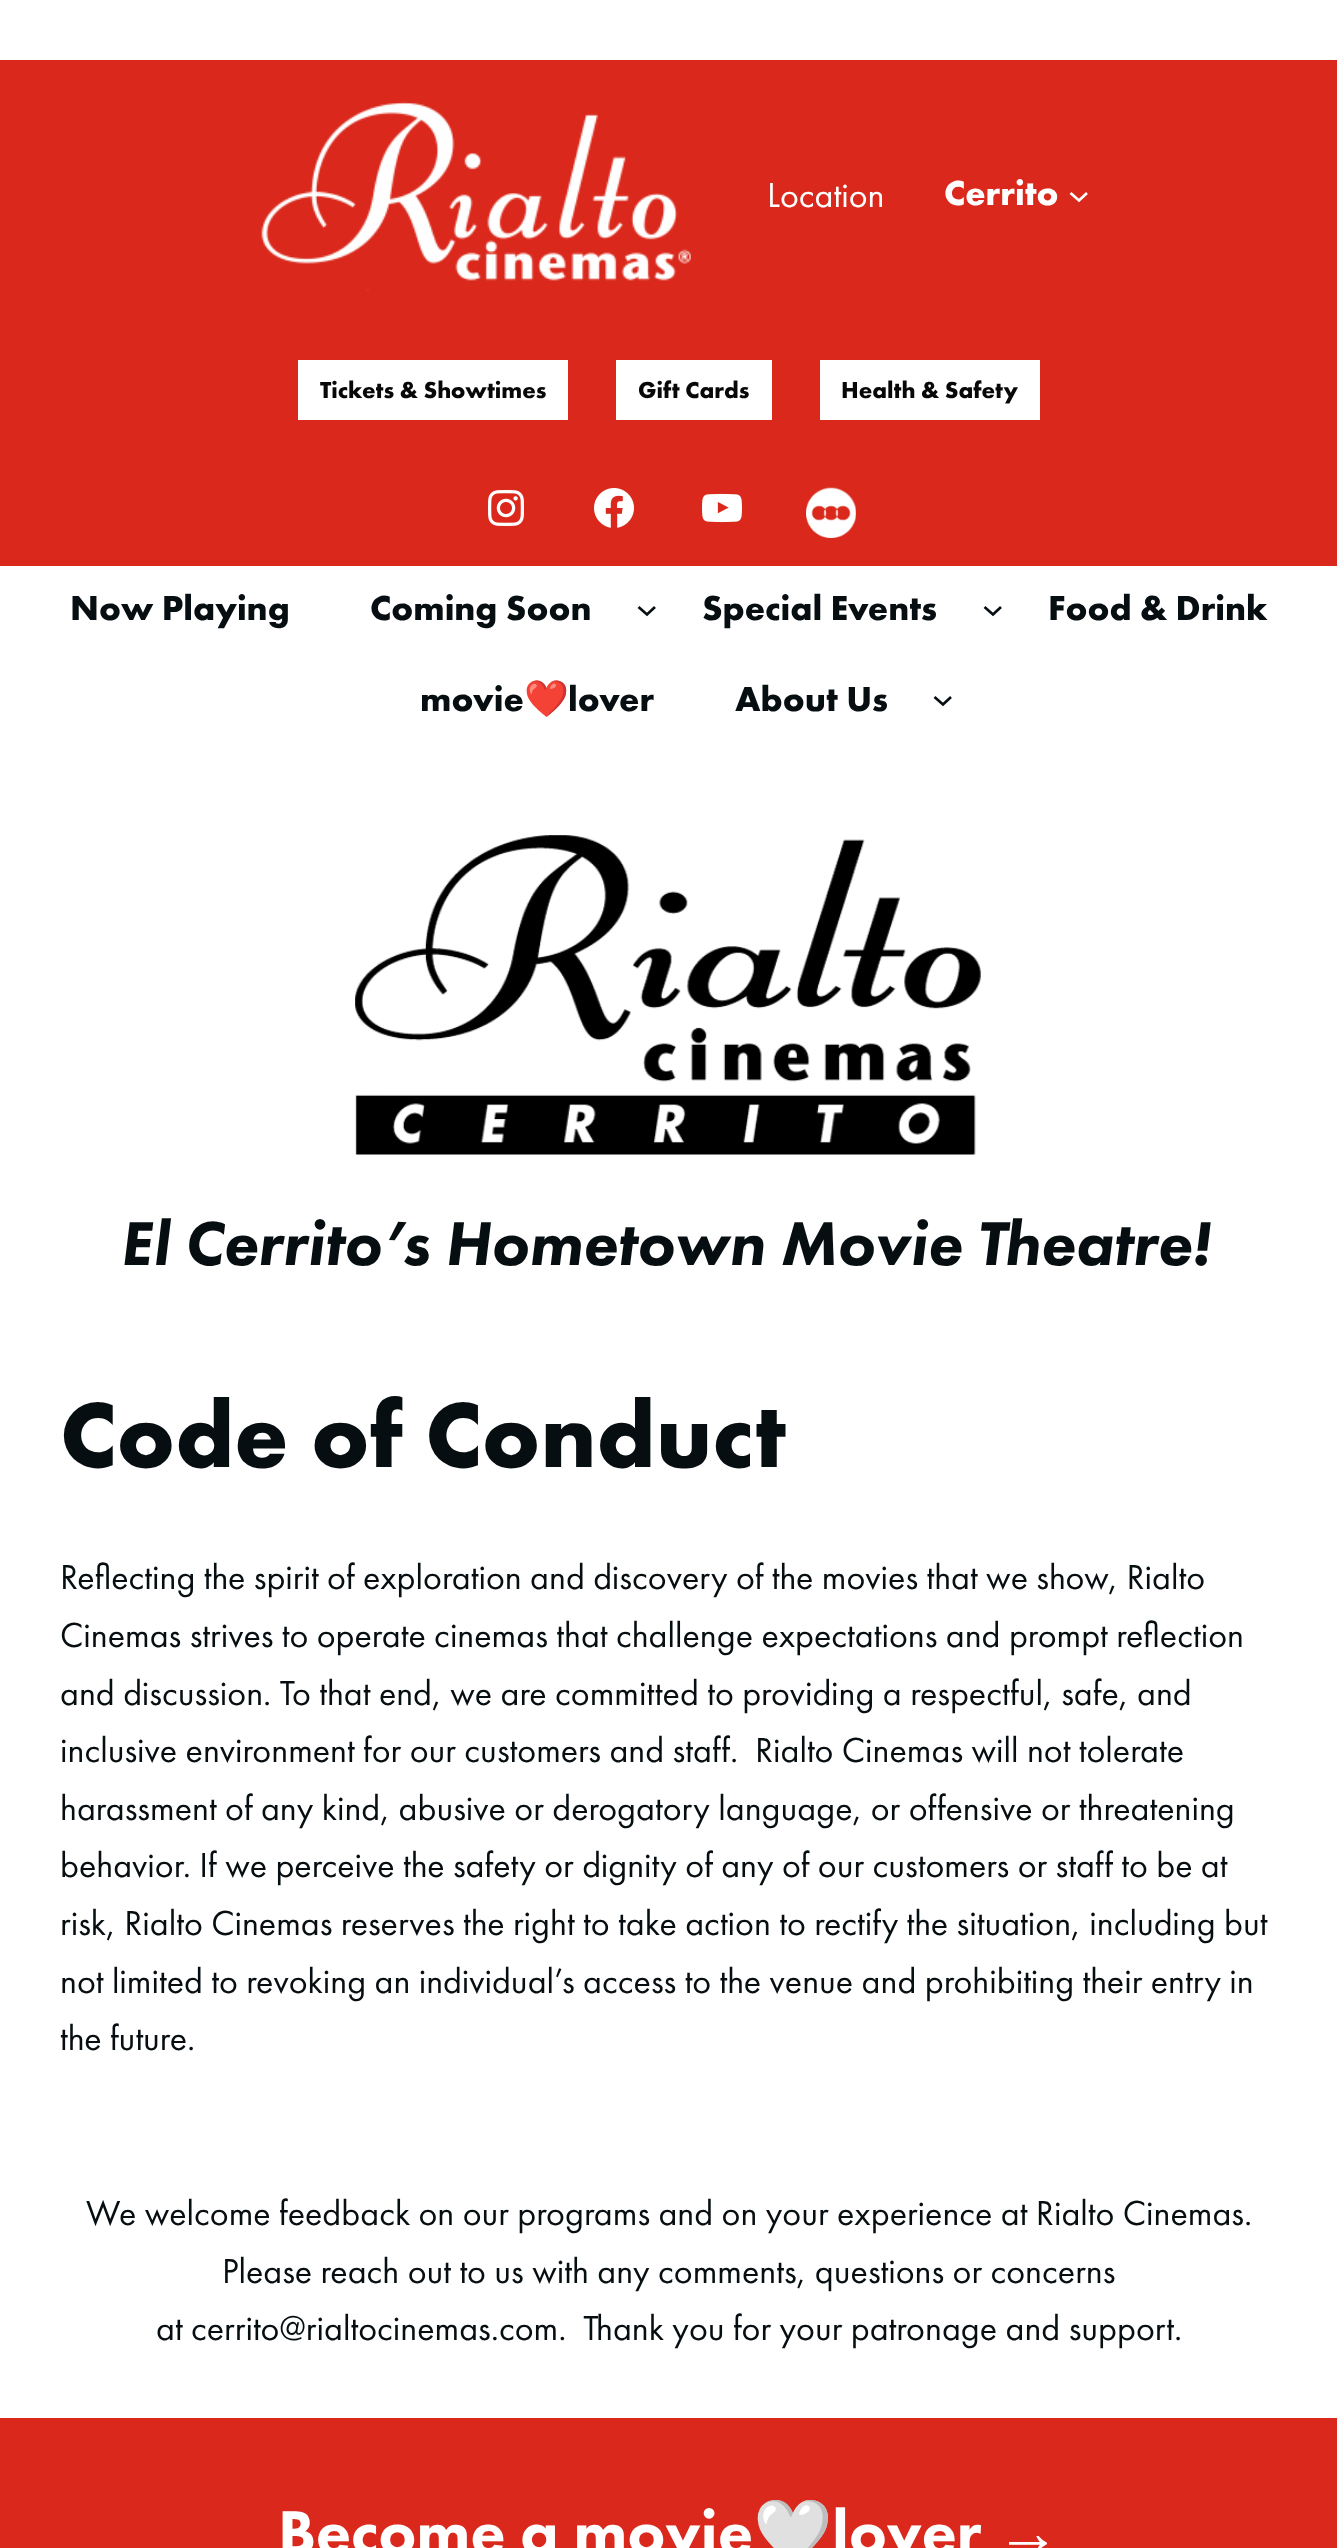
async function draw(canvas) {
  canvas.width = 1337;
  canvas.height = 2548;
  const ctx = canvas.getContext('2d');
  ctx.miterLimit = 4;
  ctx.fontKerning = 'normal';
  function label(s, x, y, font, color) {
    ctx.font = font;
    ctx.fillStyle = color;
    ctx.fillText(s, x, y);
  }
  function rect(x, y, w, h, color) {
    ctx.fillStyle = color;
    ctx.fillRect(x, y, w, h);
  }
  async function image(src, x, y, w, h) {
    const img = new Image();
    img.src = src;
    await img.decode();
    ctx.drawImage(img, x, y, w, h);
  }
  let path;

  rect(0, 0, 1337, 2548, '#fff');
  rect(0, 60, 1337, 506, '#da291c');
  await image('assets/img1.png', 261, 101, 430, 190);
  label('Location', 767, 207, '36px Futura PT', '#fff');
  label('Cerrito', 944, 205, 'bold 36px Futura PT', '#fff');
  path = new Path2D('M1070.5 193L1079 200.5L1087 193');
  ctx.strokeStyle = '#fff';
  ctx.lineWidth = 2.7;
  ctx.stroke(path);
  rect(298, 360, 270, 60, '#fff');
  label('Tickets & Showtimes', 320, 398, 'bold 24px Futura PT', '#080808');
  rect(616, 360, 156, 60, '#fff');
  label('Gift Cards', 638, 398, 'bold 24px Futura PT', '#080808');
  rect(820, 360, 220, 60, '#fff');
  label('Health & Safety', 841, 398, 'bold 24px Futura PT', '#080808');
  await image('assets/img2.png', 488, 490, 36, 36);
  await image('assets/img3.png', 594, 488, 40, 40);
  await image('assets/img4.png', 702, 493, 40, 30);
  await image('assets/img5.png', 806, 487, 50, 51);
  label('Now Playing', 70, 620, 'bold 36px Futura PT', '#070e11');
  label('Coming Soon', 370, 620, 'bold 36px Futura PT', '#070e11');
  path = new Path2D('M638.5 607L647 614.5L655 607');
  ctx.strokeStyle = '#070e11';
  ctx.stroke(path);
  label('Special Events', 702, 620, 'bold 36px Futura PT', '#070e11');
  path = new Path2D('M984.5 607L993 614.5L1001 607');
  ctx.stroke(path);
  label('Food & Drink', 1048, 620, 'bold 36px Futura PT', '#070e11');
  label('movie', 420, 711, 'bold 36px Futura PT', '#070e11');
  label('❤️', 524, 711, '36px Noto Color Emoji', '#070e11');
  label('lover', 568, 711, 'bold 36px Futura PT', '#070e11');
  label('About Us', 735, 711, 'bold 36px Futura PT', '#070e11');
  path = new Path2D('M934.5 697L943 704.5L951 697');
  ctx.stroke(path);
  await image('assets/img6.png', 355, 835, 626, 320);
  label('El Cerrito’s Hometown Movie Theatre!', 120, 1265, 'italic 900 64px Futura PT', '#070e11');
  label('Code of Conduct', 60, 1467, 'bold 96px Futura PT', '#070e11');
  label('Reflecting the spirit of exploration and discovery of the movies that we show, Rialto', 60, 1589, '36px Futura PT', '#070e11');
  label('Cinemas strives to operate cinemas that challenge expectations and prompt reflection', 60, 1647, '36px Futura PT', '#070e11');
  label('and discussion. To that end, we are committed to providing a respectful, safe, and', 60, 1705, '36px Futura PT', '#070e11');
  label('inclusive environment for our customers and staff.  Rialto Cinemas will not tolerate', 60, 1762, '36px Futura PT', '#070e11');
  label('harassment of any kind, abusive or derogatory language, or offensive or threatening', 60, 1820, '36px Futura PT', '#070e11');
  label('behavior. If we perceive the safety or dignity of any of our customers or staff to be at', 60, 1877, '36px Futura PT', '#070e11');
  label('risk, Rialto Cinemas reserves the right to take action to rectify the situation, including but', 60, 1935, '36px Futura PT', '#070e11');
  label('not limited to revoking an individual’s access to the venue and prohibiting their entry in', 60, 1993, '36px Futura PT', '#070e11');
  label('the future.', 60, 2050, '36px Futura PT', '#070e11');
  label('We welcome feedback on our programs and on your experience at Rialto Cinemas.', 86, 2225, '36px Futura PT', '#070e11');
  label('Please reach out to us with any comments, questions or concerns', 222, 2283, '36px Futura PT', '#070e11');
  label('at cerrito@rialtocinemas.com.  Thank you for your patronage and support.', 156, 2340, '36px Futura PT', '#070e11');
  rect(0, 2418, 1337, 130, '#da291c');
  label('Become a movie', 278, 2554, '900 64px Futura PT', '#fff');
  label('🤍', 753, 2554, 'bold 64px Noto Color Emoji', '#fff');
  label('lover', 832, 2554, '900 64px Futura PT', '#fff');
  label('→', 996, 2554, 'bold 64px Liberation Sans', '#fff');
}

draw(document.querySelector('canvas'));
